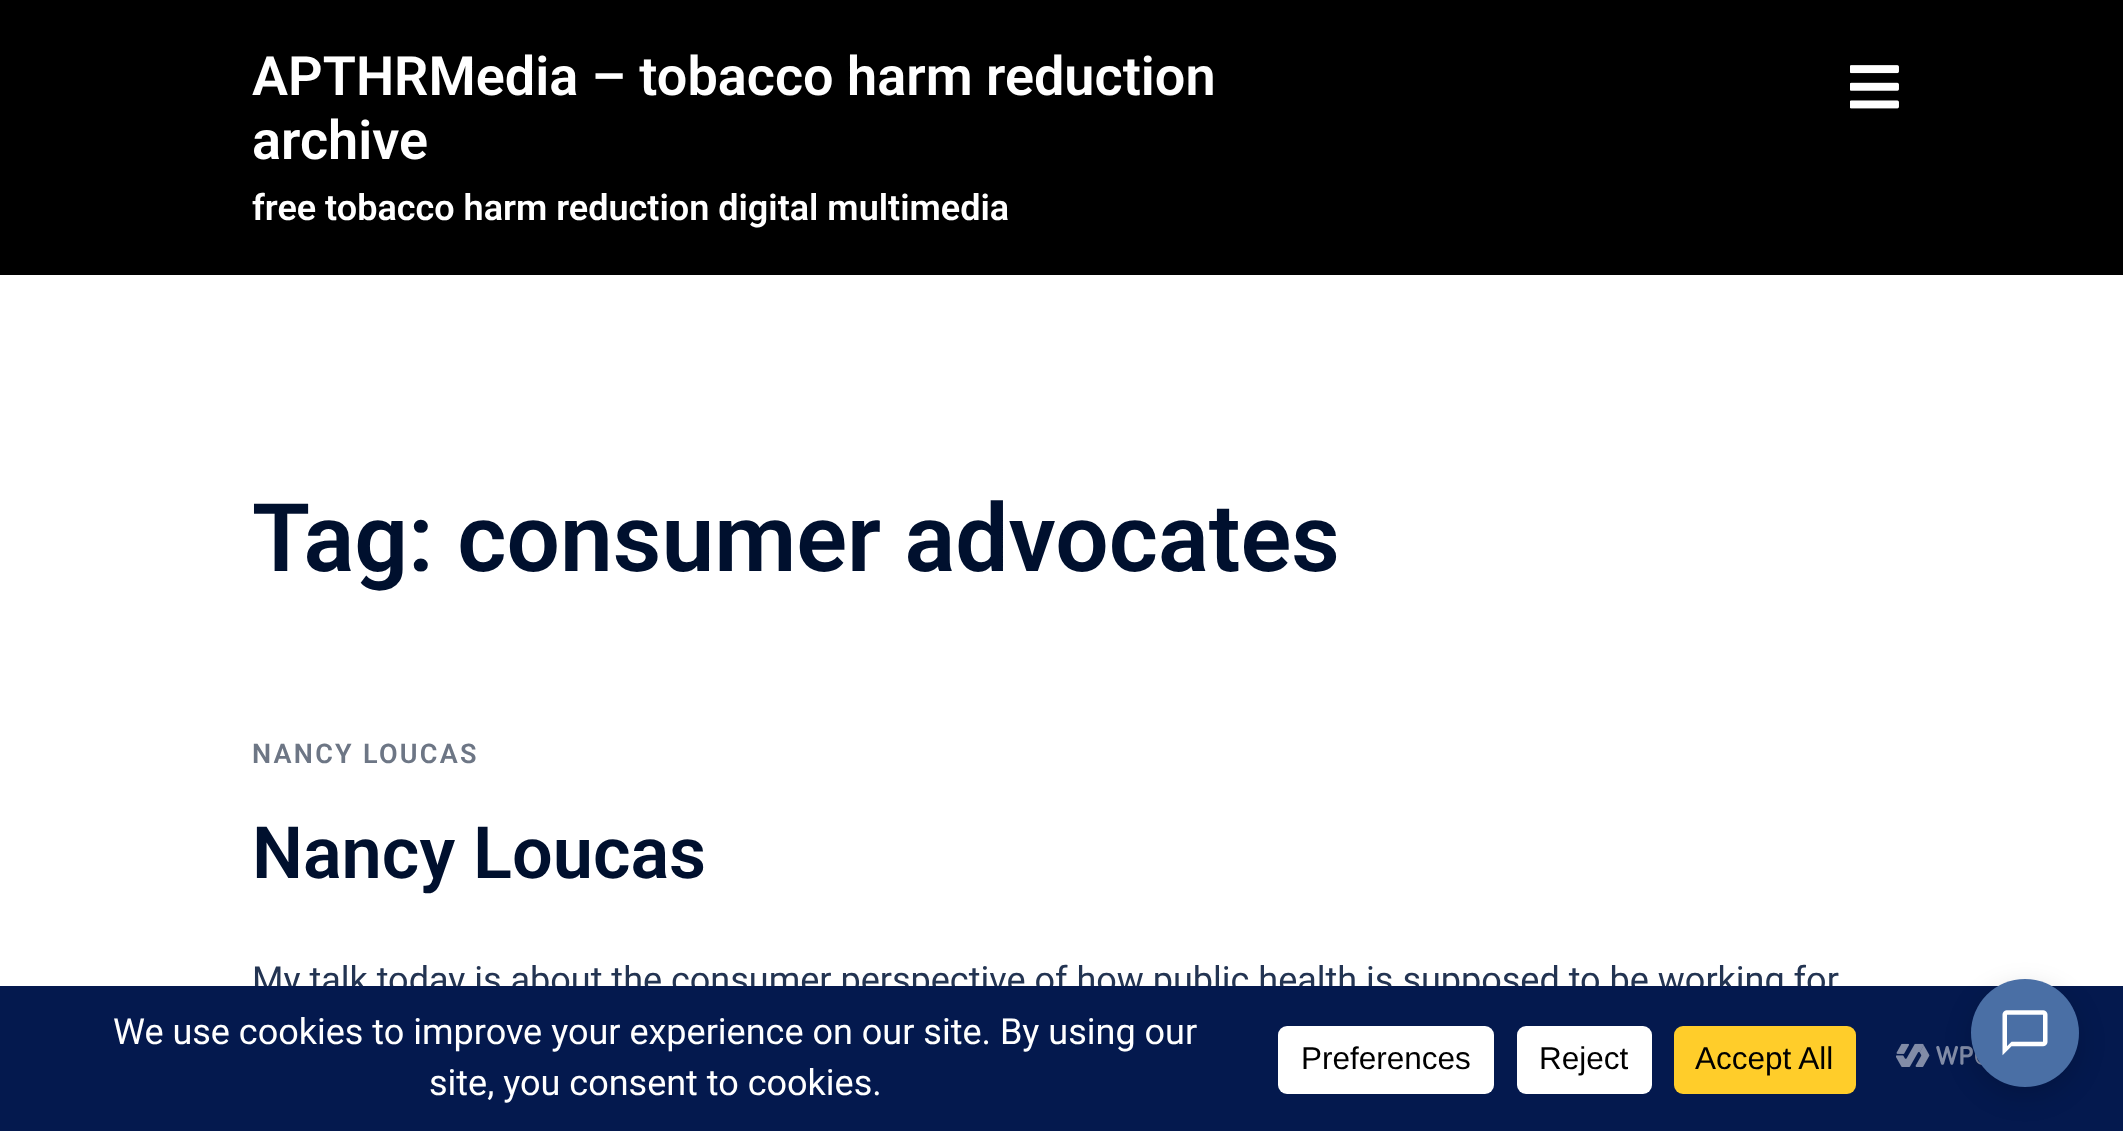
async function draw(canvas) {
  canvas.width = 2123;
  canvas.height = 1131;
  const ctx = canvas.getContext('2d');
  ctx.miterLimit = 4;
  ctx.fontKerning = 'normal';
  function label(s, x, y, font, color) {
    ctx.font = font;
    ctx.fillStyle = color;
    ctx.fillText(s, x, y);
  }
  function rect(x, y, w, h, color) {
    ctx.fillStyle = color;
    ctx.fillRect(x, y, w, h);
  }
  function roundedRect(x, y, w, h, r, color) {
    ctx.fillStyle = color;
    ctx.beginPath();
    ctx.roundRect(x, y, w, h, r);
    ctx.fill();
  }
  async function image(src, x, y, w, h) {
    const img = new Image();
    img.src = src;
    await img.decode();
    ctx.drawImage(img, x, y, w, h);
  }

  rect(0, 0, 2123, 1131, '#fff');
  rect(0, 0, 2123, 275, '#000');
  label('APTHRMedia – tobacco harm reduction', 252, 95, '600 54px Roboto', '#fff');
  label('archive', 252, 159, '600 54px Roboto', '#fff');
  label('free tobacco harm reduction digital multimedia', 252, 220, '600 36px Roboto', '#fff');
  await image('assets/img1.png', 1850, 65, 49, 44);
  label('Tag: consumer advocates', 252, 571, '600 94.5px Roboto', '#00102e');
  ctx.letterSpacing = '2.25px';
  label('NANCY LOUCAS', 252, 763, '600 27px Roboto', '#6d7685');
  ctx.letterSpacing = '0px';
  label('Nancy Loucas', 252, 878, '600 72px Roboto', '#00102e');
  label('My talk today is about the consumer perspective of how public health is supposed to be working for', 252, 992, '36px Roboto', '#233452');
  rect(0, 986, 2123, 145, '#04194e');
  label('We use cookies to improve your experience on our site. By using our', 113, 1044, '36px Roboto', '#fff');
  label('site, you consent to cookies.', 429, 1095, '36px Roboto', '#fff');
  roundedRect(1278, 1026, 216, 68, 9, '#fff');
  label('Preferences', 1301, 1069, '31.5px Liberation Sans', '#000');
  roundedRect(1517, 1026, 135, 68, 9, '#fff');
  label('Reject', 1539, 1069, '31.5px Liberation Sans', '#000');
  roundedRect(1674, 1026, 182, 68, 9, '#ffcd2a');
  label('Accept All', 1695, 1069, '31.5px Liberation Sans', '#000');
  await image('assets/img2.png', 1896, 1043, 86, 24);
  ctx.fillStyle = '#00000026';
  ctx.filter = 'blur(13.5px)';
  ctx.beginPath();
  ctx.roundRect(1971, 988, 108, 108, 54);
  ctx.fill();
  ctx.filter = 'none';
  ctx.fillStyle = '#4a6fa5';
  ctx.beginPath();
  ctx.arc(2025, 1033, 54, 0, 2 * Math.PI);
  ctx.fill();
  await image('assets/img3.png', 2002, 1010, 46, 46);
}

draw(document.querySelector('canvas'));
